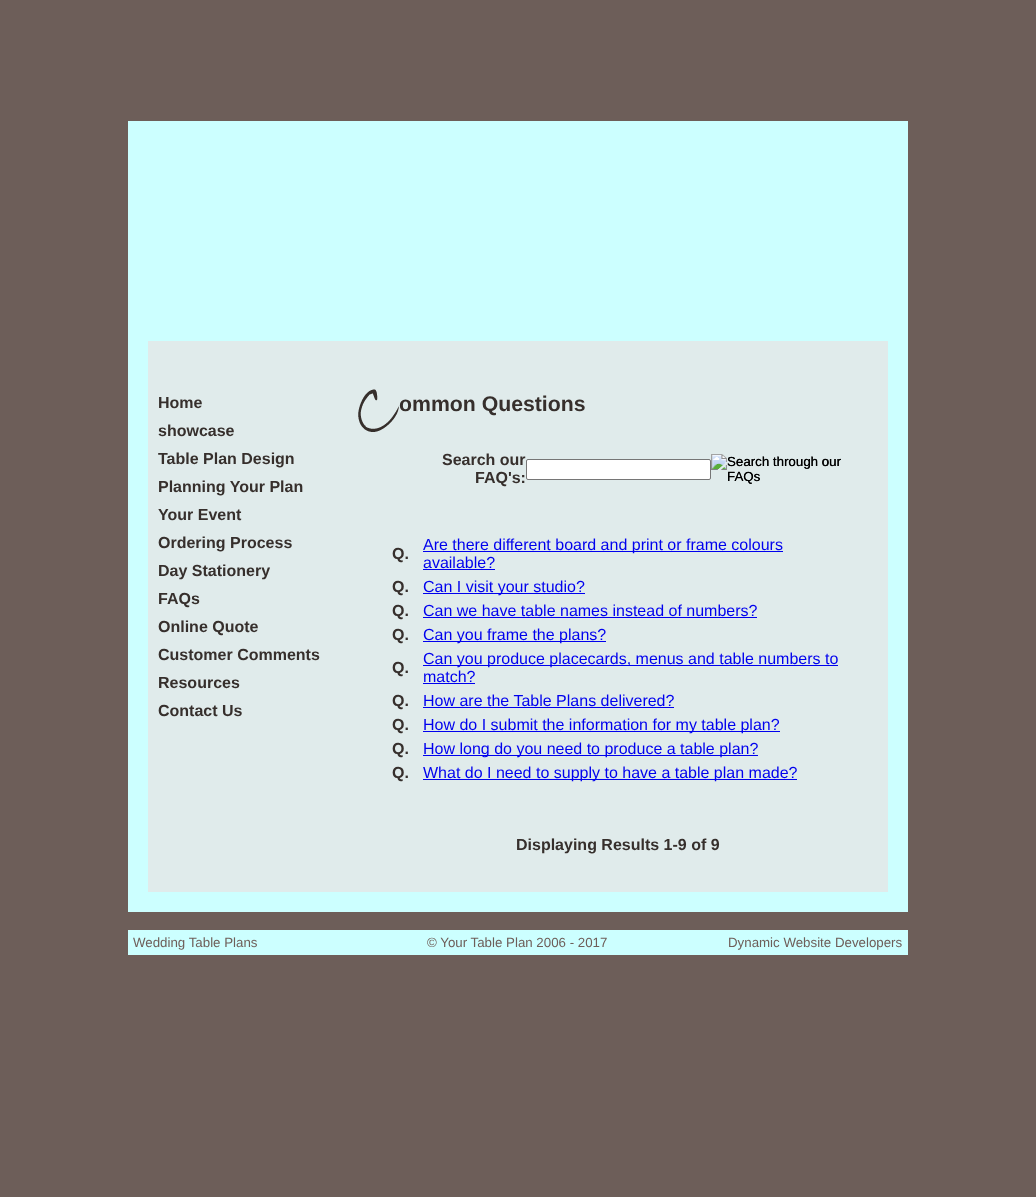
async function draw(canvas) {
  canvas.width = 1036;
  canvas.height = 1197;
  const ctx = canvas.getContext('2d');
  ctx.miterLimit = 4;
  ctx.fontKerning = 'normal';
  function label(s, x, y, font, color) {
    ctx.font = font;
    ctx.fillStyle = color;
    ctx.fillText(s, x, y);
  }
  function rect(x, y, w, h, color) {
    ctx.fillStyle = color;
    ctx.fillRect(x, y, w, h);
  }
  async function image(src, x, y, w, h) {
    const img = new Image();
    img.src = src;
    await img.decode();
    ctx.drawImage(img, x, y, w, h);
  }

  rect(0, 0, 1036, 1197, '#6d5e59');
  rect(128, 121, 780, 791, '#cff');
  rect(148, 341, 740, 551, '#e0ebeb');
  label('Home', 158, 408, 'bold 16px Liberation Sans', '#362f2c');
  label('showcase', 158, 436, 'bold 16px Liberation Sans', '#362f2c');
  label('Table Plan Design', 158, 464, 'bold 16px Liberation Sans', '#362f2c');
  label('Planning Your Plan', 158, 492, 'bold 16px Liberation Sans', '#362f2c');
  label('Your Event', 158, 520, 'bold 16px Liberation Sans', '#362f2c');
  label('Ordering Process', 158, 548, 'bold 16px Liberation Sans', '#362f2c');
  label('Day Stationery', 158, 576, 'bold 16px Liberation Sans', '#362f2c');
  label('FAQs', 158, 604, 'bold 16px Liberation Sans', '#362f2c');
  label('Online Quote', 158, 632, 'bold 16px Liberation Sans', '#362f2c');
  label('Customer Comments', 158, 660, 'bold 16px Liberation Sans', '#362f2c');
  label('Resources', 158, 688, 'bold 16px Liberation Sans', '#362f2c');
  label('Contact Us', 158, 716, 'bold 16px Liberation Sans', '#362f2c');
  await image('assets/img1.png', 358, 389, 41, 43);
  label('ommon Questions', 399, 411, 'bold 21.25px Liberation Sans', '#362f2c');
  label('Search our', 442, 465, 'bold 16px Liberation Sans', '#362f2c');
  label('FAQ\'s:', 475, 483, 'bold 16px Liberation Sans', '#362f2c');
  ctx.fillStyle = '#fff';
  ctx.beginPath();
  ctx.roundRect(526.5, 459.5, 184, 20, 1.5);
  ctx.fill();
  ctx.strokeStyle = '#767676';
  ctx.stroke();
  await image('assets/img2.png', 711, 454, 130, 30);
  label('Search through our', 727, 466, '13.3px Liberation Sans', '#000');
  label('FAQs', 727, 481, '13.3px Liberation Sans', '#000');
  label('Q.', 392, 559, 'bold 16px Liberation Sans', '#362f2c');
  rect(423, 551, 360, 1, '#00e');
  label('Are there different board and print or frame colours', 423, 550, '16px Liberation Sans', '#00e');
  label('available?', 423, 568, '16px Liberation Sans', '#00e');
  rect(423, 569, 72, 1, '#00e');
  label('Q.', 392, 592, 'bold 16px Liberation Sans', '#362f2c');
  rect(423, 593, 162, 1, '#00e');
  label('Can I visit your studio?', 423, 592, '16px Liberation Sans', '#00e');
  label('Q.', 392, 616, 'bold 16px Liberation Sans', '#362f2c');
  label('Can we have table names instead of numbers?', 423, 616, '16px Liberation Sans', '#00e');
  rect(423, 617, 334, 1, '#00e');
  label('Q.', 392, 640, 'bold 16px Liberation Sans', '#362f2c');
  rect(423, 641, 183, 1, '#00e');
  label('Can you frame the plans?', 423, 640, '16px Liberation Sans', '#00e');
  label('Q.', 392, 673, 'bold 16px Liberation Sans', '#362f2c');
  rect(423, 665, 415, 1, '#00e');
  label('Can you produce placecards, menus and table numbers to', 423, 664, '16px Liberation Sans', '#00e');
  label('match?', 423, 682, '16px Liberation Sans', '#00e');
  rect(423, 683, 52, 1, '#00e');
  label('Q.', 392, 706, 'bold 16px Liberation Sans', '#362f2c');
  label('How are the Table Plans delivered?', 423, 706, '16px Liberation Sans', '#00e');
  rect(423, 707, 251, 1, '#00e');
  label('Q.', 392, 730, 'bold 16px Liberation Sans', '#362f2c');
  rect(423, 731, 357, 1, '#00e');
  label('How do I submit the information for my table plan?', 423, 730, '16px Liberation Sans', '#00e');
  label('Q.', 392, 754, 'bold 16px Liberation Sans', '#362f2c');
  rect(423, 755, 335, 1, '#00e');
  label('How long do you need to produce a table plan?', 423, 754, '16px Liberation Sans', '#00e');
  label('Q.', 392, 778, 'bold 16px Liberation Sans', '#362f2c');
  rect(423, 779, 374, 1, '#00e');
  label('What do I need to supply to have a table plan made?', 423, 778, '16px Liberation Sans', '#00e');
  label('Displaying Results 1-9 of 9', 516, 850, 'bold 16px Liberation Sans', '#362f2c');
  rect(128, 930, 780, 25, '#cff');
  label('Wedding Table Plans', 133, 947, '13.3px Liberation Sans', '#6e5e59');
  label('© Your Table Plan 2006 - 2017', 427, 947, '13.3px Liberation Sans', '#6e5e59');
  label('Dynamic Website Developers', 728, 947, '13.3px Liberation Sans', '#6e5e59');
}

draw(document.querySelector('canvas'));
